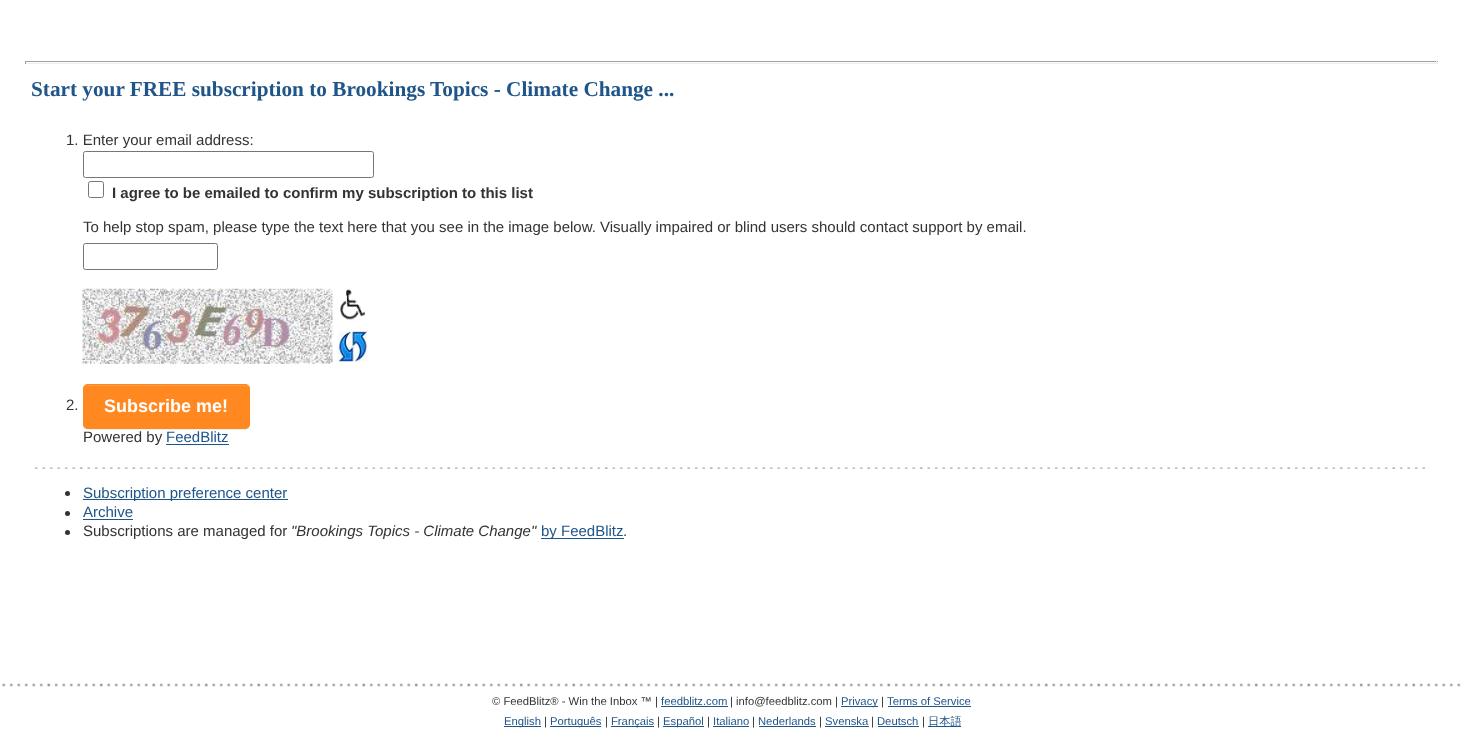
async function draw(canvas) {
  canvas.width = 1462;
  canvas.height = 744;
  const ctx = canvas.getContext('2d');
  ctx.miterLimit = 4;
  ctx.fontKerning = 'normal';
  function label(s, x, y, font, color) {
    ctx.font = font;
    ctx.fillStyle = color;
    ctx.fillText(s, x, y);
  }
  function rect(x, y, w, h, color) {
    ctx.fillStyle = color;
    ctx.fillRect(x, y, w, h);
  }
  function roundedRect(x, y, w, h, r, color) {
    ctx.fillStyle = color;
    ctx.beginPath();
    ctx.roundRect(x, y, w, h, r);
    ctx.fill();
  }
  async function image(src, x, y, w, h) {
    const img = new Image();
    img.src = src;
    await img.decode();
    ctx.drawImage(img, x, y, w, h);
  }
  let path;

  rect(0, 0, 1462, 744, '#fff');
  rect(25, 61, 1413, 1, '#9f9f9f');
  rect(1436, 61, 1, 3, '#eee');
  rect(25, 63, 1413, 1, '#eee');
  rect(25, 61, 1, 3, '#9f9f9f');
  label('Start your FREE subscription to Brookings Topics - Climate Change ...', 31, 96, 'bold 21.25px Liberation Serif', '#20558a');
  label('1. Enter your email address:', 66, 145, '15px Liberation Sans', '#333');
  ctx.beginPath();
  ctx.roundRect(83.5, 151.5, 290, 26, 2);
  ctx.strokeStyle = '#767676';
  ctx.stroke();
  ctx.beginPath();
  ctx.roundRect(88.5, 181.5, 15, 16, 2);
  ctx.stroke();
  label('I agree to be emailed to confirm my subscription to this list', 112, 198, 'bold 15px Liberation Sans', '#333');
  label('To help stop spam, please type the text here that you see in the image below. Visually impaired or blind users should contact support by email.', 83, 232, '15px Liberation Sans', '#333');
  ctx.beginPath();
  ctx.roundRect(83.5, 243.5, 134, 26, 2);
  ctx.stroke();
  await image('assets/img1.png', 82, 288, 251, 76);
  await image('assets/img2.png', 340, 289, 25, 31);
  await image('assets/img3.png', 337, 331, 31, 31);
  label('2.', 66, 410, '15px Liberation Sans', '#333');
  ctx.fillStyle = '#2c363e12';
  ctx.filter = 'blur(0.5px)';
  ctx.beginPath();
  ctx.roundRect(83, 385, 167, 45, 5);
  ctx.fill();
  ctx.filter = 'none';
  roundedRect(83, 384, 167, 45, 5, '#ff8820');
  ctx.fillStyle = '#ff9a41';
  path = new Path2D('M88 386H245C247 386 249 388 249 390V389C249 387 247 385 245 385H88C86 385 84 387 84 389V390C84 388 85 386 88 386Z');
  ctx.fill(path);
  ctx.beginPath();
  ctx.roundRect(83.5, 384.5, 166, 44, 4.5);
  ctx.strokeStyle = '#ff8820';
  ctx.stroke();
  label('Subscribe me!', 104, 412, 'bold 18px Liberation Sans', '#fff');
  label('Powered by', 83, 442, '15px Liberation Sans', '#333');
  label('FeedBlitz', 166, 442, '15px Liberation Sans', '#20558a');
  rect(166, 444, 63, 1, '#20558a');
  await image('assets/img4.png', 34, 467, 1396, 2);
  ctx.fillStyle = '#333';
  ctx.beginPath();
  ctx.arc(67.5, 493.5, 2.5, 0, 2 * Math.PI);
  ctx.fill();
  rect(83, 499, 205, 1, '#20558a');
  label('Subscription preference center', 83, 498, '15px Liberation Sans', '#20558a');
  ctx.fillStyle = '#333';
  ctx.beginPath();
  ctx.arc(67.5, 513.5, 2.5, 0, 2 * Math.PI);
  ctx.fill();
  label('Archive', 83, 517, '15px Liberation Sans', '#20558a');
  rect(83, 519, 50, 1, '#20558a');
  ctx.fillStyle = '#333';
  ctx.beginPath();
  ctx.arc(67.5, 532.5, 2.5, 0, 2 * Math.PI);
  ctx.fill();
  label('Subscriptions are managed for', 83, 536, '15px Liberation Sans', '#333');
  label('"Brookings Topics - Climate Change"', 291, 536, 'italic 15px Liberation Sans', '#333');
  rect(541, 538, 83, 1, '#20558a');
  label('by FeedBlitz', 541, 536, '15px Liberation Sans', '#20558a');
  label('.', 623, 536, '15px Liberation Sans', '#333');
  await image('assets/img5.png', 2, 683, 1459, 4);
  label('© FeedBlitz® - Win the Inbox ™ |', 492, 705, '11.25px Liberation Sans', '#333');
  label('feedblitz.com', 661, 705, '11.25px Liberation Sans', '#20558a');
  rect(661, 706, 67, 1, '#20558a');
  label('| info@feedblitz.com |', 730, 705, '11.25px Liberation Sans', '#333');
  rect(841, 706, 37, 1, '#20558a');
  label('Privacy', 841, 705, '11.25px Liberation Sans', '#20558a');
  label('|', 881, 705, '11.25px Liberation Sans', '#333');
  label('Terms of Service', 887, 705, '11.25px Liberation Sans', '#20558a');
  rect(888, 706, 83, 1, '#20558a');
  rect(504, 726, 37, 1, '#20558a');
  label('English', 504, 725, '11.25px Liberation Sans', '#20558a');
  label('|', 544, 725, '11.25px Liberation Sans', '#333');
  rect(550, 726, 51, 1, '#20558a');
  label('Português', 550, 725, '11.25px Liberation Sans', '#20558a');
  label('|', 605, 725, '11.25px Liberation Sans', '#333');
  rect(611, 726, 43, 1, '#20558a');
  label('Français', 611, 725, '11.25px Liberation Sans', '#20558a');
  label('|', 657, 725, '11.25px Liberation Sans', '#333');
  rect(663, 726, 41, 1, '#20558a');
  label('Español', 663, 725, '11.25px Liberation Sans', '#20558a');
  label('|', 707, 725, '11.25px Liberation Sans', '#333');
  label('Italiano', 713, 725, '11.25px Liberation Sans', '#20558a');
  rect(713, 726, 36, 1, '#20558a');
  label('|', 752, 725, '11.25px Liberation Sans', '#333');
  label('Nederlands', 758, 725, '11.25px Liberation Sans', '#20558a');
  rect(759, 726, 57, 1, '#20558a');
  label('|', 819, 725, '11.25px Liberation Sans', '#333');
  label('Svenska', 825, 725, '11.25px Liberation Sans', '#20558a');
  rect(825, 726, 44, 1, '#20558a');
  label('|', 871, 725, '11.25px Liberation Sans', '#333');
  label('Deutsch', 877, 725, '11.25px Liberation Sans', '#20558a');
  rect(878, 726, 41, 1, '#20558a');
  label('|', 922, 725, '11.25px Liberation Sans', '#333');
  rect(928, 726, 33, 1, '#20558a');
  label('日本語', 928, 725, '500 11.25px WenQuanYi Zen Hei', '#20558a');
}

draw(document.querySelector('canvas'));
